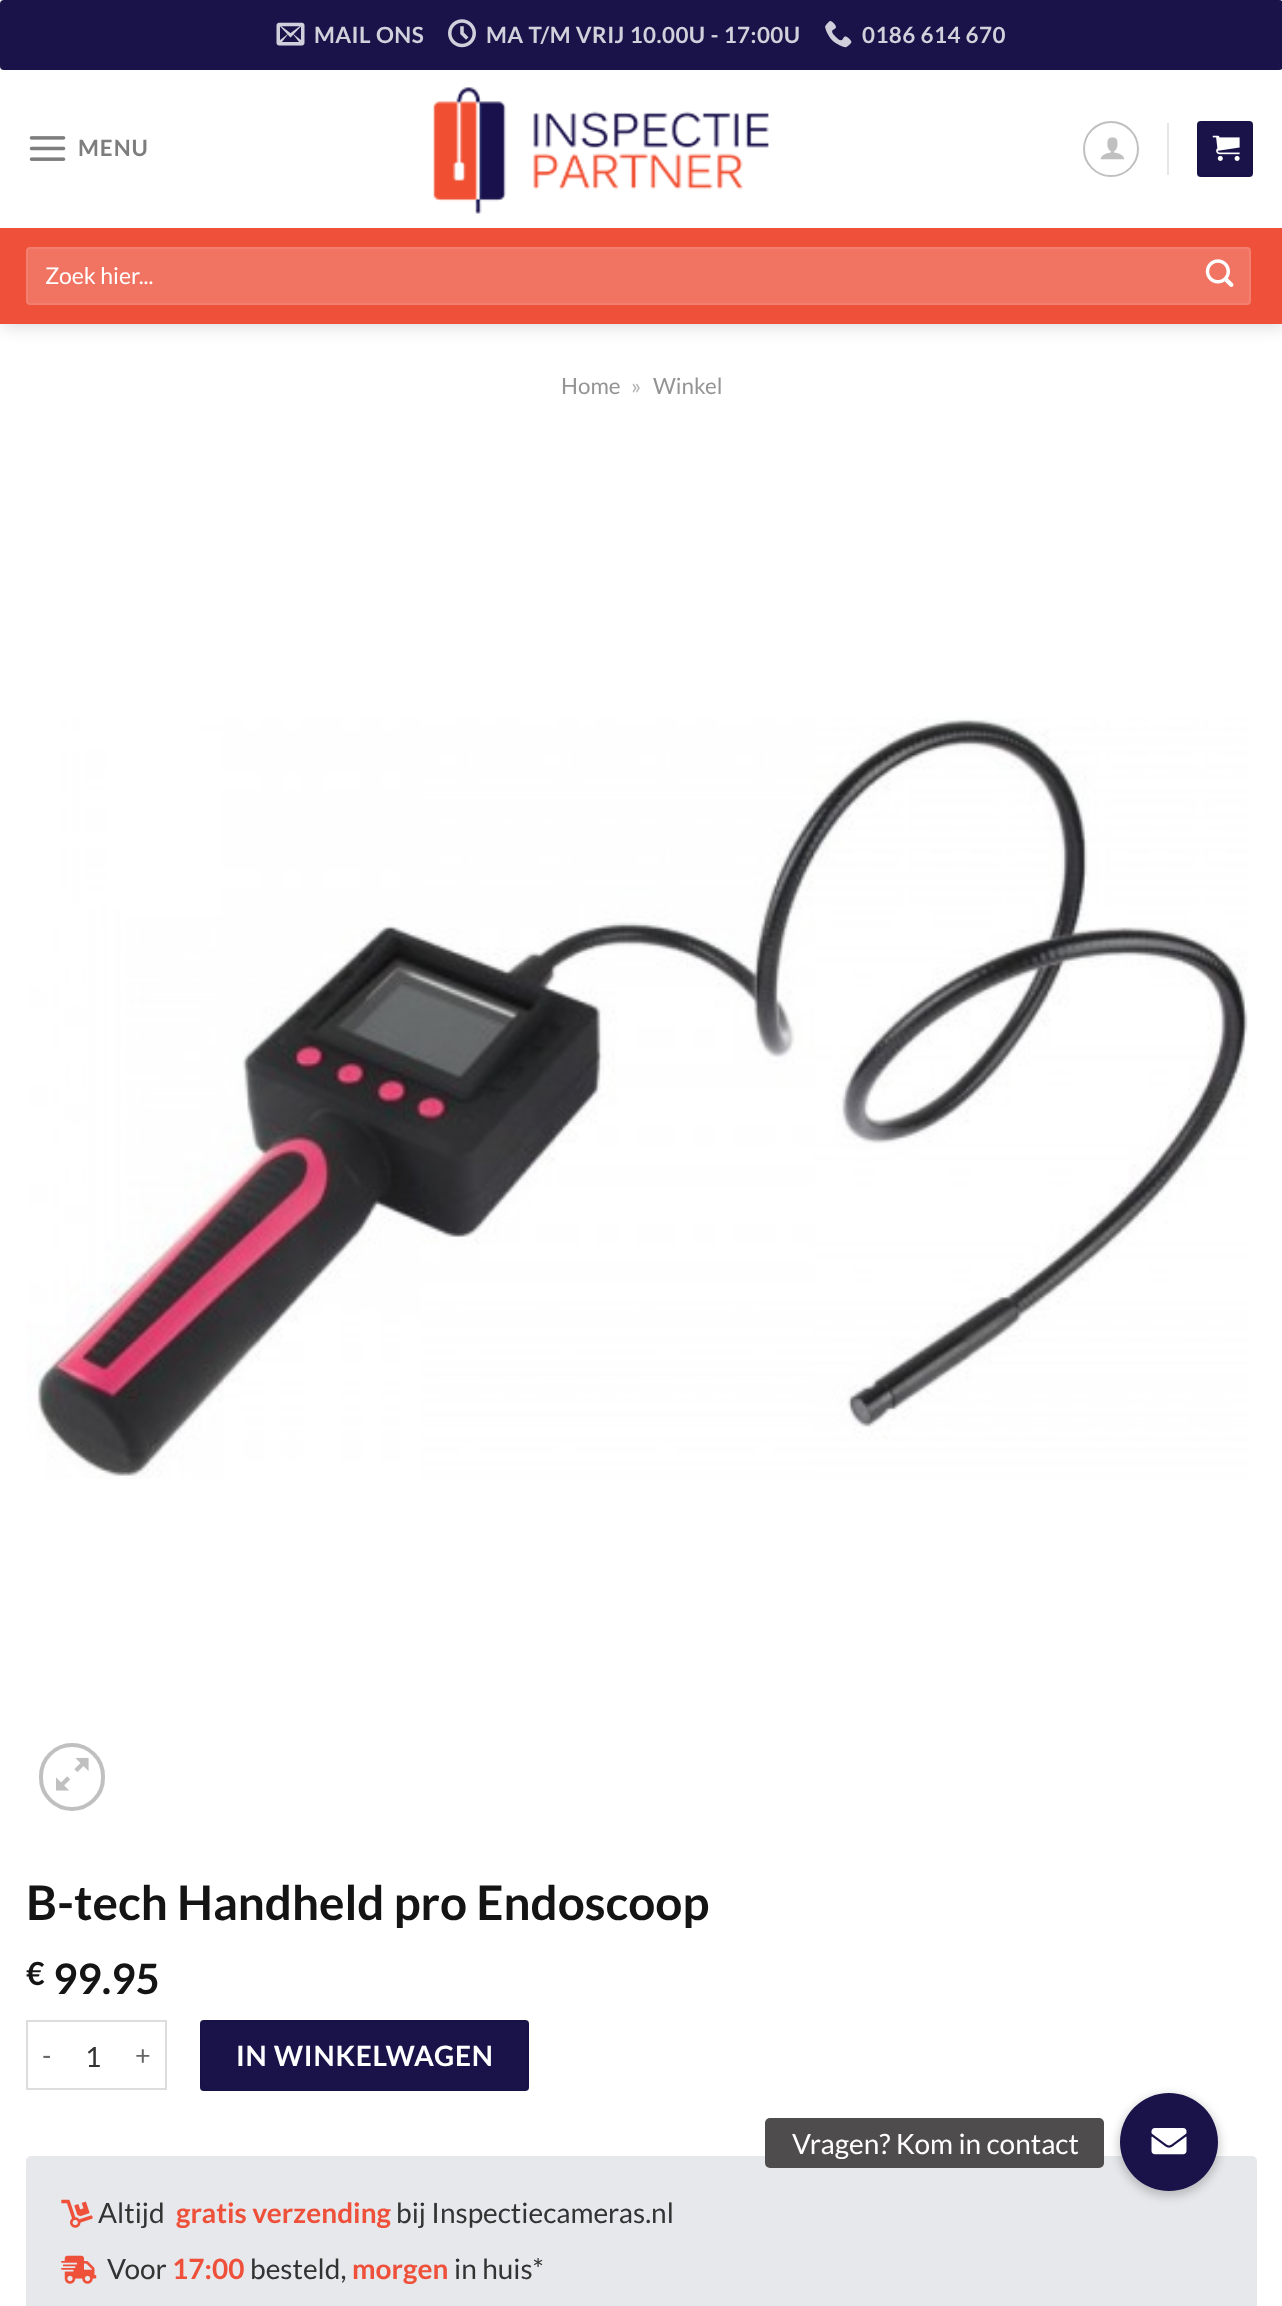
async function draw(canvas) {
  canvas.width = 1282;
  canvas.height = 2306;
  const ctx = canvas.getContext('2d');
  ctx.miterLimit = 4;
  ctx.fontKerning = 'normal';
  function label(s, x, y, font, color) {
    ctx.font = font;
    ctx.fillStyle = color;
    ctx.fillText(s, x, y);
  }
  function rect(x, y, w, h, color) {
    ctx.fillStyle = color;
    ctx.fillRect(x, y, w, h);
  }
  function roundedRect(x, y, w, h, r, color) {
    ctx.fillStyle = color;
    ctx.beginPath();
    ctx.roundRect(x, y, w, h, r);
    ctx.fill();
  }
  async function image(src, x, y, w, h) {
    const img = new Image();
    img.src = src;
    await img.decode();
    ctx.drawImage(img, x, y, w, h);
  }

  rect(0, 0, 1282, 2306, '#fff');
  ctx.fillStyle = '#00000026';
  ctx.filter = 'blur(9px)';
  ctx.beginPath();
  ctx.rect(2, 2, 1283, 324);
  ctx.fill();
  ctx.filter = 'none';
  rect(0, 0, 1282, 228, '#fff');
  roundedRect(0, 0, 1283, 70, 4, '#19134a');
  await image('assets/img1.png', 276, 22, 29, 24);
  ctx.letterSpacing = '0.45px';
  label('MAIL ONS', 314, 43, 'bold 22.4px Lato', '#d1d0db');
  await image('assets/img2.png', 448, 19, 28, 29);
  label('MA T/M VRIJ 10.00U - 17:00U', 486, 43, 'bold 22.4px Lato', '#d1d0db');
  await image('assets/img3.png', 825, 21, 27, 27);
  label('0186 614 670', 862, 43, 'bold 22.4px Lato', '#d1d0db');
  await image('assets/img4.png', 29, 136, 37, 25);
  ctx.letterSpacing = '1px';
  label('MENU', 78, 156, 'bold 22.4px Lato', '#7d7d7d');
  await image('assets/img5.png', 433, 87, 336, 127);
  ctx.beginPath();
  ctx.arc(1111, 149, 27, 0, 2 * Math.PI);
  ctx.strokeStyle = '#c0c0c0';
  ctx.lineWidth = 2;
  ctx.stroke();
  await image('assets/img6.png', 1100, 137, 25, 23);
  rect(1167, 123, 2, 52, '#e6e6e6');
  roundedRect(1197, 121, 56, 56, 4, '#19134a');
  ctx.strokeStyle = '#0000000d';
  ctx.strokeRect(1198, 122, 54, 54);
  await image('assets/img7.png', 1212, 135, 28, 26);
  rect(0, 228, 1282, 96, '#ee503a');
  roundedRect(26, 247, 1225, 58, 4, '#f17361');
  ctx.beginPath();
  ctx.roundRect(27, 248, 1223, 56, 3);
  ctx.strokeStyle = '#ffffff17';
  ctx.stroke();
  ctx.letterSpacing = '0px';
  label('Zoek hier...', 45, 284, '23px Lato', '#fff');
  await image('assets/img8.png', 1205, 259, 29, 28);
  label('Home', 561, 394, '22.4px Lato', '#949494');
  label('»', 631, 394, '22.4px Lato', '#b2b2b2');
  label('Winkel', 653, 394, '22.4px Lato', '#949494');
  await image('assets/img9.png', 27, 717, 1221, 762);
  ctx.beginPath();
  ctx.roundRect(41, 1745, 62, 64, 31);
  ctx.strokeStyle = '#c0c0c0';
  ctx.lineWidth = 4;
  ctx.stroke();
  await image('assets/img10.png', 56, 1757, 33, 34);
  label('B-tech Handheld pro Endoscoop', 26, 1920, 'bold 47.6px Lato', '#141414');
  label('€', 26, 1985, 'bold 32px Lato', '#141414');
  label('99.95', 53, 1994, 'bold 42px Lato', '#141414');
  rect(26, 2020, 140, 2, '#ddd');
  rect(26, 2088, 95, 2, '#ddd');
  rect(26, 2020, 2, 70, '#ddd');
  ctx.letterSpacing = '1px';
  label('-', 42, 2065, '27px Lato', '#666');
  ctx.letterSpacing = '0px';
  label('1', 85, 2067, '28px Lato', '#333');
  rect(165, 2020, 2, 70, '#ddd');
  rect(121, 2088, 45, 2, '#ddd');
  ctx.letterSpacing = '1px';
  label('+', 135, 2065, '27px Lato', '#666');
  roundedRect(200, 2020, 329, 71, 4, '#19134a');
  ctx.strokeStyle = '#0000000d';
  ctx.lineWidth = 2;
  ctx.strokeRect(201, 2021, 327, 69);
  ctx.letterSpacing = '0.8px';
  label('IN WINKELWAGEN', 236, 2066, 'bold 28px Lato', '#fff');
  roundedRect(26, 2156, 1231, 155, 5, '#e7e8ec');
  await image('assets/img11.png', 61, 2199, 32, 29);
  ctx.letterSpacing = '0px';
  label('Altijd', 98, 2223, '28px Lato', '#333');
  label('gratis verzending', 176, 2223, 'bold 28px Lato', '#ee503a');
  label('bij Inspectiecameras.nl', 396, 2223, '28px Lato', '#333');
  await image('assets/img12.png', 61, 2255, 36, 29);
  label('Voor', 107, 2279, '28px Lato', '#333');
  label('17:00', 172, 2279, 'bold 28px Lato', '#ee503a');
  label('besteld,', 250, 2279, '28px Lato', '#333');
  label('morgen', 352, 2279, 'bold 28px Lato', '#ee503a');
  label('in huis*', 454, 2279, '28px Lato', '#333');
  ctx.fillStyle = '#00000033';
  ctx.filter = 'blur(5px)';
  ctx.beginPath();
  ctx.roundRect(1118, 2095, 102, 101, 50.5);
  ctx.fill();
  ctx.filter = 'none';
  ctx.fillStyle = '#19134a';
  ctx.beginPath();
  ctx.arc(1169, 2142, 49, 0, 2 * Math.PI);
  ctx.fill();
  roundedRect(765, 2118, 339, 50, 5, '#4e4c4c');
  label('Vragen? Kom in contact', 792, 2154, '28px Lato', '#fff');
  await image('assets/img13.png', 1151, 2128, 36, 27);
}

draw(document.querySelector('canvas'));
